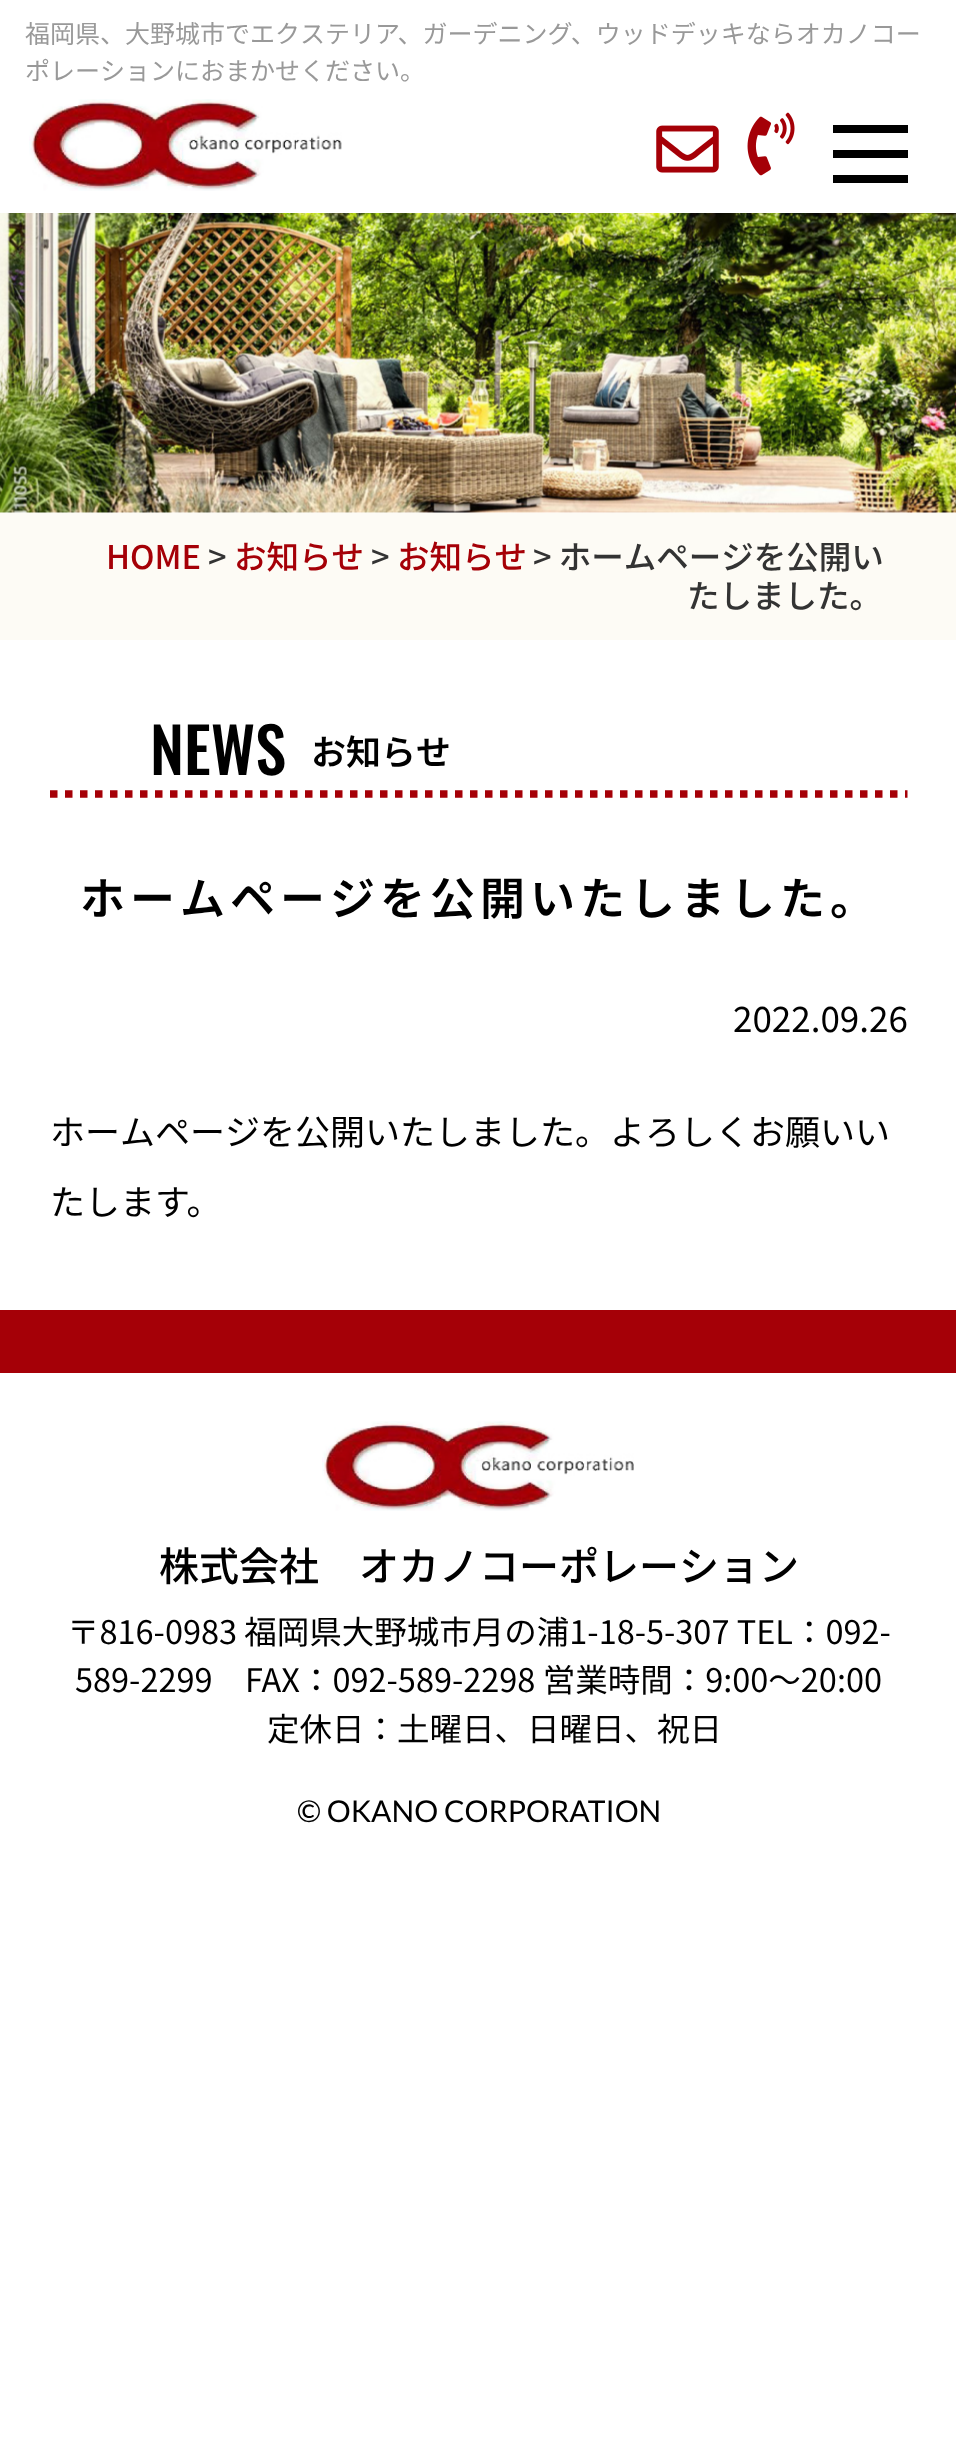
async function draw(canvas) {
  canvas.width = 956;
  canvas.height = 2460;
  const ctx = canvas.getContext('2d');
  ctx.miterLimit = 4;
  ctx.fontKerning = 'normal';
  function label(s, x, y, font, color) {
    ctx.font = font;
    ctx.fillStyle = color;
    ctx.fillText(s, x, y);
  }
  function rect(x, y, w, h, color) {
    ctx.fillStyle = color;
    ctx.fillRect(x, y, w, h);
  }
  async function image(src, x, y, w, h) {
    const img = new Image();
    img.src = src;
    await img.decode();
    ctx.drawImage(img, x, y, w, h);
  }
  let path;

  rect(0, 0, 956, 2460, '#fff');
  label('福岡県、大野城市でエクステリア、ガーデニング、ウッドデッキならオカノコー', 25, 43, '25px Noto Sans JP', '#999');
  label('ポレーションにおまかせください。', 25, 80, '25px Noto Sans JP', '#999');
  await image('assets/img1.png', 29, 99, 313, 92);
  await image('assets/img2.png', 656, 125, 63, 48);
  await image('assets/img3.png', 747, 112, 48, 64);
  rect(833, 125, 75, 8, '#000');
  rect(833, 150, 75, 8, '#000');
  rect(833, 175, 75, 8, '#000');
  await image('assets/img4.png', 0, 213, 956, 300);
  rect(0, 513, 956, 127, '#fdfbf5');
  label('HOME', 106, 569, '500 32.5px Noto Sans JP', '#a50007');
  label('>', 208, 569, '500 32.5px Noto Sans JP', '#333');
  label('お知らせ', 234, 569, '500 32.5px Noto Sans JP', '#a50007');
  label('>', 371, 569, '500 32.5px Noto Sans JP', '#333');
  label('お知らせ', 397, 569, '500 32.5px Noto Sans JP', '#a50007');
  label('> ホームページを公開い', 533, 569, '500 32.5px Noto Sans JP', '#333');
  label('たしました。', 687, 608, '500 32.5px Noto Sans JP', '#333');
  path = new Path2D('M50 794H907.5');
  ctx.strokeStyle = '#a50007';
  ctx.lineWidth = 7.5;
  ctx.setLineDash([7.5, 7.5]);
  ctx.stroke(path);
  label('NEWS', 150, 775, '500 62.5px Oswald', '#000');
  label('お知らせ', 311, 765, '600 35px Noto Sans JP', '#000');
  ctx.letterSpacing = '5px';
  label('ホームページを公開いたしました。', 80, 915, '600 45px Noto Sans JP', '#000');
  ctx.letterSpacing = '0px';
  label('2022.09.26', 733, 1032, '35px Noto Sans JP', '#000');
  label('ホームページを公開いたしました。よろしくお願いい', 50, 1145, '35px Noto Sans JP', '#000');
  label('たします。', 50, 1215, '35px Noto Sans JP', '#000');
  rect(0, 1310, 956, 63, '#a50007');
  await image('assets/img5.png', 322, 1421, 312, 90);
  label('株式会社　オカノコーポレーション', 159, 1581, '500 40px Noto Sans JP', '#000');
  label('〒816-0983 福岡県大野城市月の浦1-18-5-307 TEL：092-', 67, 1644, '32.5px Noto Sans JP', '#000');
  label('589-2299　FAX：092-589-2298 営業時間：9:00～20:00', 75, 1692, '32.5px Noto Sans JP', '#000');
  label('定休日：土曜日、日曜日、祝日', 267, 1741, '32.5px Noto Sans JP', '#000');
  label('©︎ OKANO CORPORATION', 297, 1822, '30px Lato', '#000');
}

draw(document.querySelector('canvas'));
